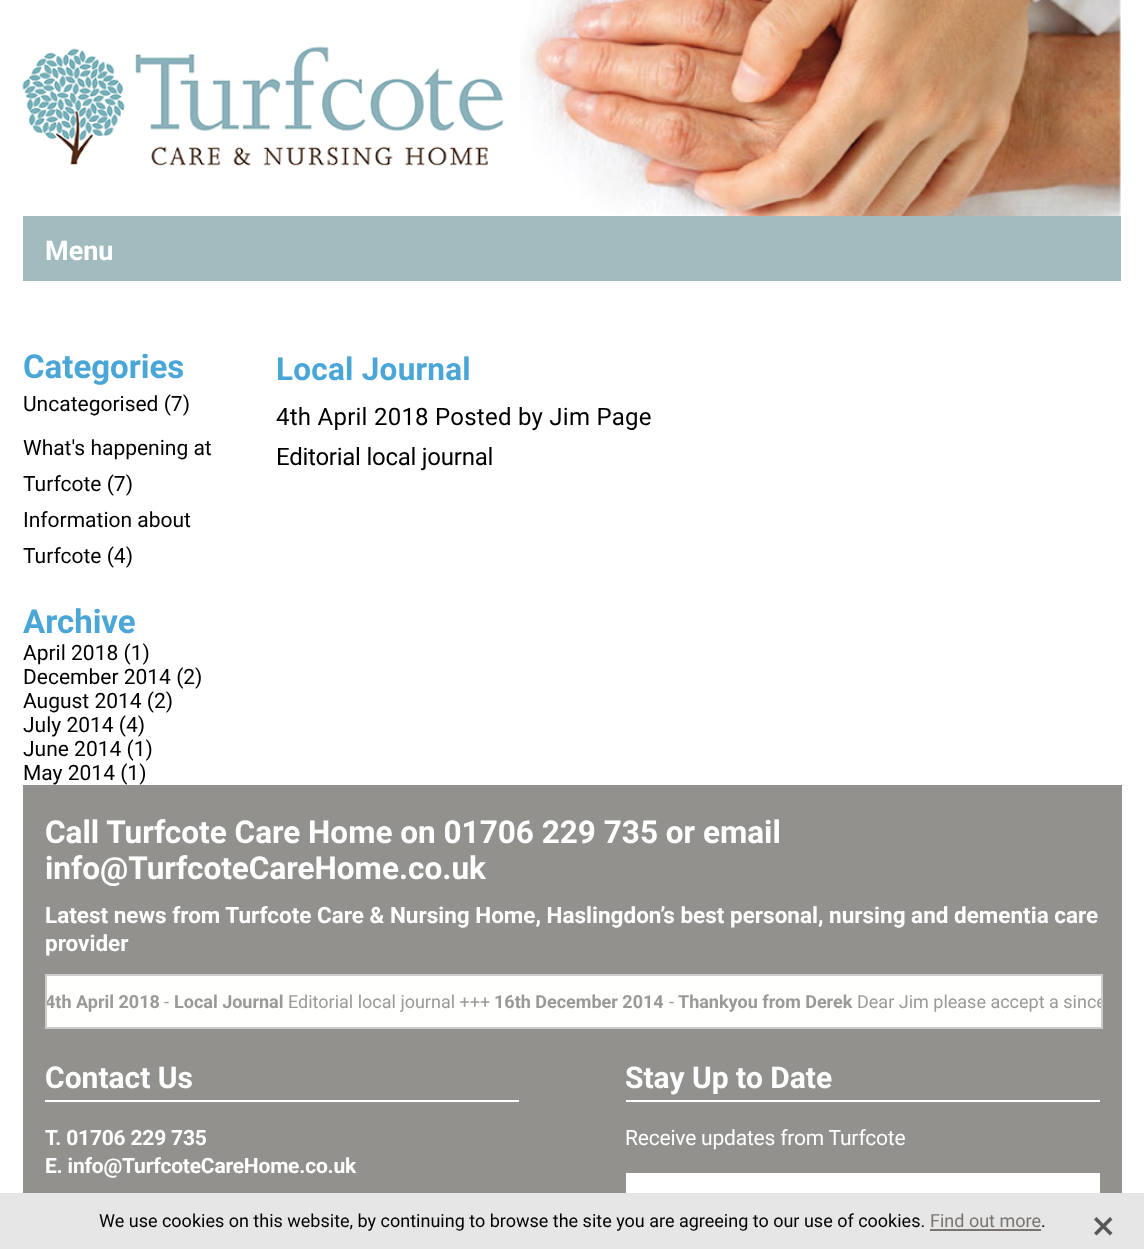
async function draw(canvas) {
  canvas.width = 1144;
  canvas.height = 1249;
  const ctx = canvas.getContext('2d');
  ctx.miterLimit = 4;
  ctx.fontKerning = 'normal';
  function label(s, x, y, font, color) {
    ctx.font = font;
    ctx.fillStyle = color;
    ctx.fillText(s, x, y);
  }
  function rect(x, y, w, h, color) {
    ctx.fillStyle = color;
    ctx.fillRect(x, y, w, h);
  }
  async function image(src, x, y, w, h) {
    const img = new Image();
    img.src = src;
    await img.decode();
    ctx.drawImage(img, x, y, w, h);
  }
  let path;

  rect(0, 0, 1144, 1249, '#fff');
  await image('assets/img1.png', 520, 0, 601, 216);
  rect(23, 216, 1098, 65, '#a1bbbe');
  await image('assets/img2.png', 22, 46, 482, 120);
  label('Menu', 45, 260, 'bold 27px Roboto', '#fff');
  label('Categories', 23, 378, 'bold 33px Roboto', '#49a6d6');
  label('Uncategorised (7)', 23, 411, '21px Roboto', '#000');
  label('What\'s happening at', 23, 455, '21px Roboto', '#000');
  label('Turfcote (7)', 23, 491, '21px Roboto', '#000');
  label('Information about', 23, 527, '21px Roboto', '#000');
  label('Turfcote (4)', 23, 563, '21px Roboto', '#000');
  label('Archive', 23, 633, 'bold 33px Roboto', '#49a6d6');
  label('April 2018 (1)', 23, 660, '21px Roboto', '#000');
  label('December 2014 (2)', 23, 684, '21px Roboto', '#000');
  label('August 2014 (2)', 23, 708, '21px Roboto', '#000');
  label('July 2014 (4)', 23, 732, '21px Roboto', '#000');
  label('June 2014 (1)', 23, 756, '21px Roboto', '#000');
  label('May 2014 (1)', 23, 780, '21px Roboto', '#000');
  ctx.letterSpacing = '0.25px';
  label('Local Journal', 276, 380, 'bold 31.5px Roboto', '#49a6d6');
  label('4th April 2018 Posted by Jim Page', 276, 425, '24px Roboto', '#000');
  ctx.letterSpacing = '-0.25px';
  label('Editorial local journal', 276, 465, '24px Roboto', '#000');
  rect(23, 785, 1099, 408, '#92918d');
  ctx.letterSpacing = '0px';
  label('Call Turfcote Care Home on 01706 229 735 or email', 45, 843, 'bold 31.5px Roboto', '#fff');
  label('info@TurfcoteCareHome.co.uk', 45, 879, 'bold 31.5px Roboto', '#fff');
  label('Latest news from Turfcote Care & Nursing Home, Haslingdon’s best personal, nursing and dementia care', 45, 923, 'bold 22.5px Roboto', '#fff');
  label('provider', 45, 951, 'bold 22.5px Roboto', '#fff');
  ctx.fillStyle = '#fffffe';
  ctx.beginPath();
  ctx.rect(46, 975, 1056, 53);
  ctx.fill();
  ctx.strokeStyle = '#ccc';
  ctx.lineWidth = 2;
  ctx.stroke();
  ctx.save();
  ctx.beginPath();
  ctx.rect(47, 983, 1054, 33);
  ctx.clip();
  label('4th April 2018', 45, 1008, 'bold 18px Roboto', '#9a9998');
  ctx.restore();
  label('-', 164, 1008, '18px Roboto', '#9a9998');
  label('Local Journal', 174, 1008, 'bold 18px Roboto', '#9a9998');
  label('Editorial local journal +++', 288, 1008, '18px Roboto', '#9a9998');
  label('16th December 2014', 494, 1008, 'bold 18px Roboto', '#9a9998');
  label('-', 669, 1008, '18px Roboto', '#9a9998');
  label('Thankyou from Derek', 678, 1008, 'bold 18px Roboto', '#9a9998');
  ctx.save();
  ctx.beginPath();
  ctx.rect(47, 983, 1054, 33);
  ctx.clip();
  label('Dear Jim please accept a since', 857, 1008, '18px Roboto', '#9a9998');
  ctx.restore();
  rect(45, 1100, 474, 2, '#fff');
  label('Contact Us', 45, 1088, 'bold 30px Roboto', '#fff');
  ctx.letterSpacing = '-0.2px';
  label('T. 01706 229 735', 45, 1145, 'bold 21px Roboto', '#fff');
  label('E. info@TurfcoteCareHome.co.uk', 45, 1173, 'bold 21px Roboto', '#fff');
  rect(626, 1100, 474, 2, '#fff');
  ctx.letterSpacing = '0px';
  label('Stay Up to Date', 625, 1088, 'bold 30px Roboto', '#fff');
  ctx.letterSpacing = '-0.2px';
  label('Receive updates from Turfcote', 625, 1145, '21px Roboto', '#fff');
  rect(626, 1173, 474, 20, '#fff');
  rect(0, 1193, 1144, 56, '#e6e6e6');
  ctx.letterSpacing = '0px';
  label('We use cookies on this website, by continuing to browse the site you are agreeing to our use of cookies.', 99, 1227, '18px Roboto', '#000');
  label('Find out more', 930, 1227, '18px Roboto', '#7b7370');
  rect(930, 1229, 111, 2, '#7b7370');
  label('.', 1041, 1227, '18px Roboto', '#000');
  ctx.fillStyle = '#575757';
  path = new Path2D('M1094 1233L1110 1217L1112.5 1219.5L1096.5 1235.5Z');
  ctx.fill(path);
  path = new Path2D('M1096.5 1217L1112.5 1233L1110 1235.5L1094 1219.5Z');
  ctx.fill(path);
}

draw(document.querySelector('canvas'));
